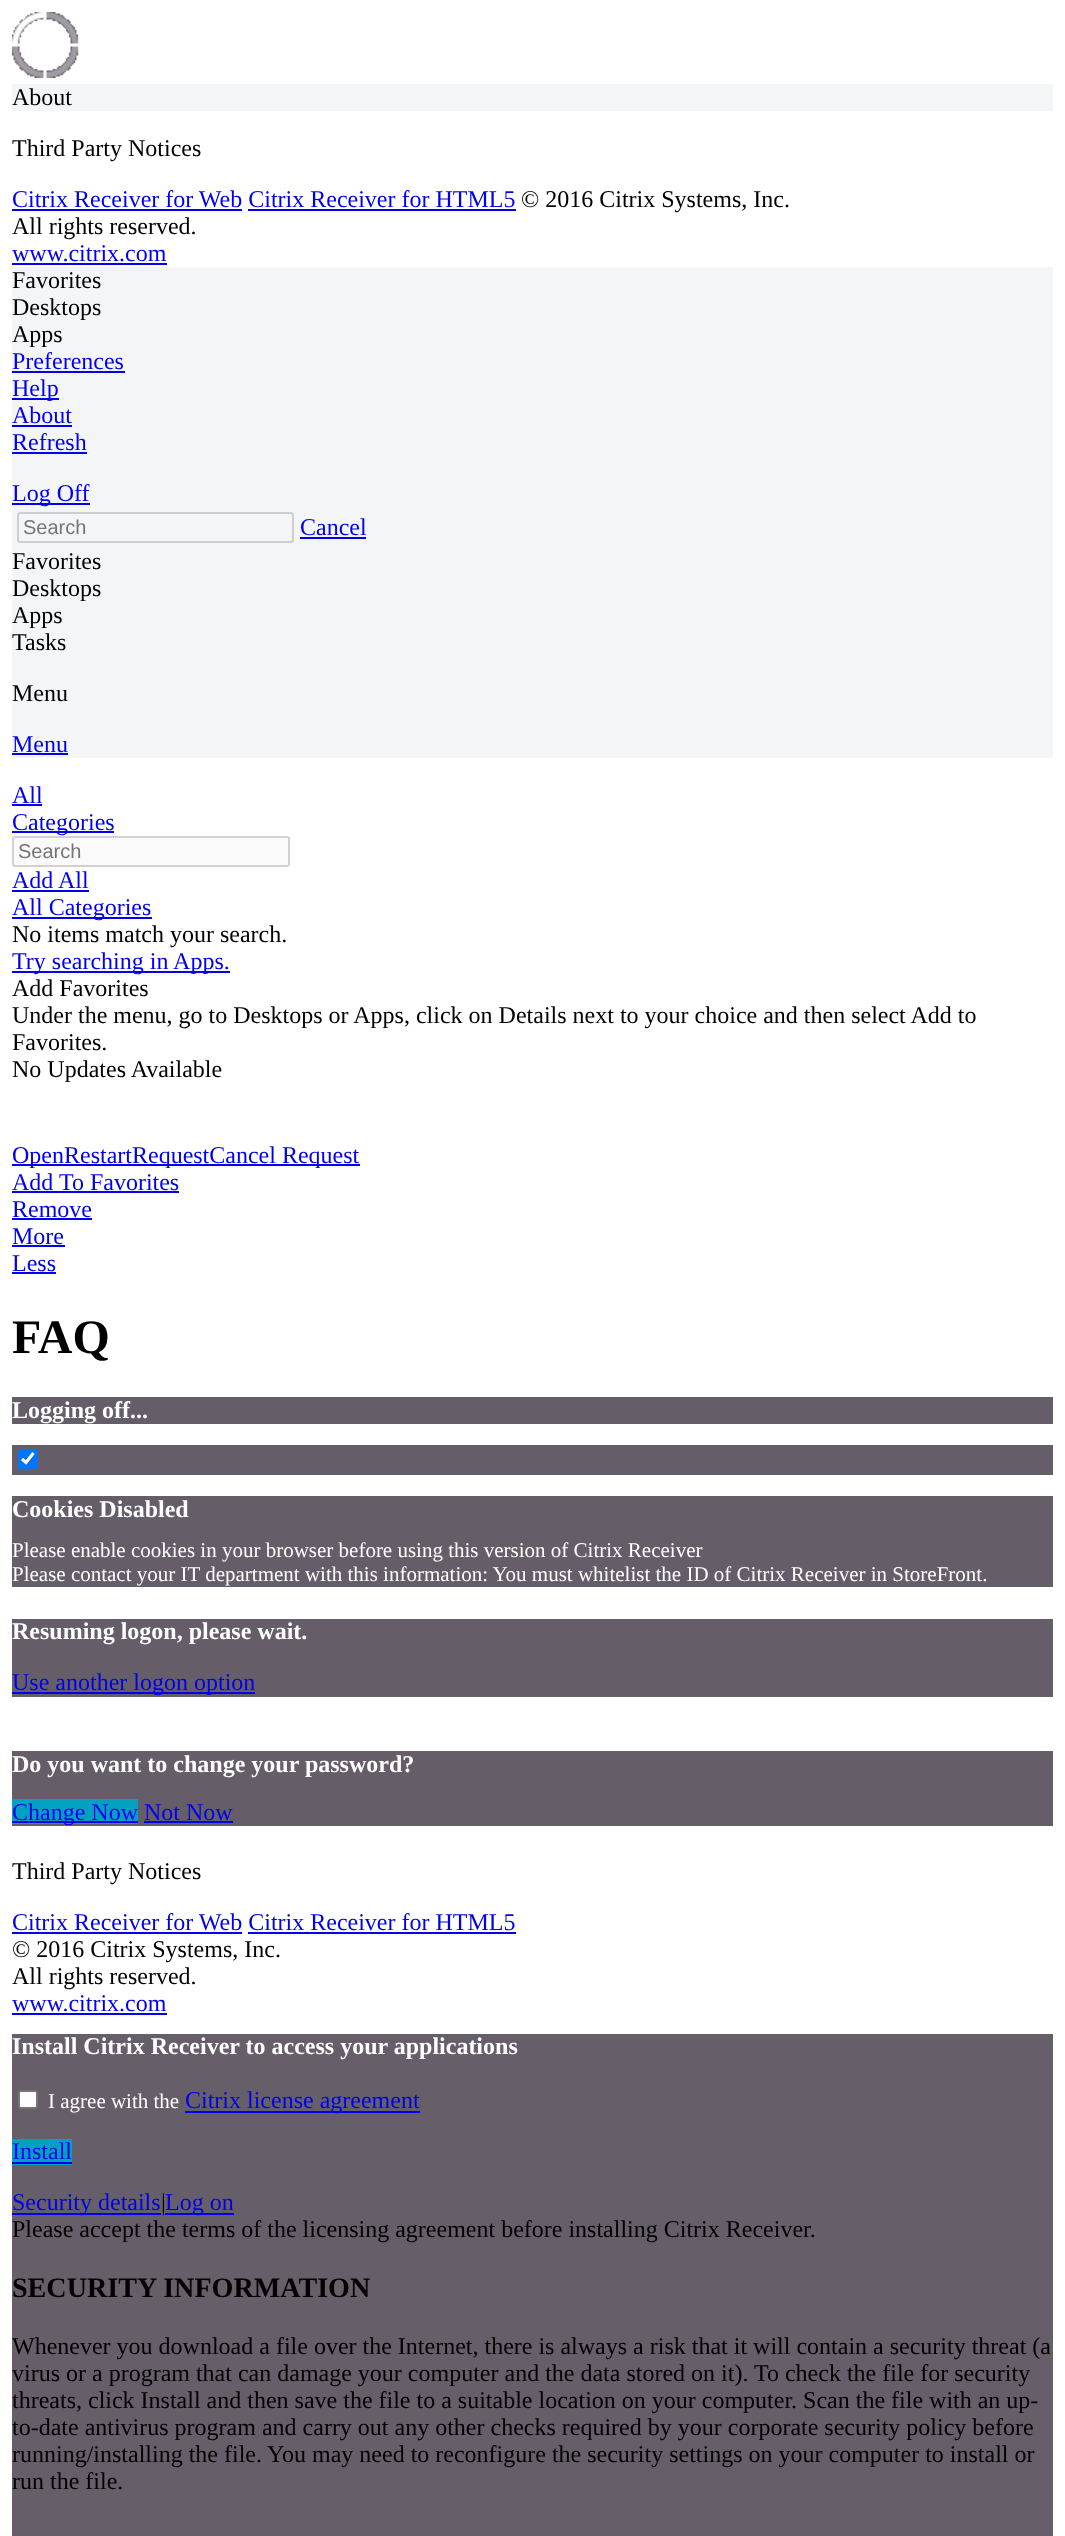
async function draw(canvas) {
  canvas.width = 1065;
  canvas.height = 2536;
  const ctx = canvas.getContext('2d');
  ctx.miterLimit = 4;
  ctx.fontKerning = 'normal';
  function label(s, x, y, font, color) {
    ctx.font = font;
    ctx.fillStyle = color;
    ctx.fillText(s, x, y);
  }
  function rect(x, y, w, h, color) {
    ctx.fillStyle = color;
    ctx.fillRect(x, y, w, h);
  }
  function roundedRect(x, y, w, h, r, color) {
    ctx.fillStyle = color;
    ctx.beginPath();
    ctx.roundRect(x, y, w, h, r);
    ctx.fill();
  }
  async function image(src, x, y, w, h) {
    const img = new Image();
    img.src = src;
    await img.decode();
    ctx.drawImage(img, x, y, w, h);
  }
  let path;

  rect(0, 0, 1065, 2536, '#fff');
  await image('assets/img1.png', 12, 12, 67, 66);
  rect(12, 84, 1041, 27, '#f4f5f6');
  label('About', 12, 105, '24px Liberation Serif', '#000');
  label('Third Party Notices', 12, 156, '24px Liberation Serif', '#000');
  label('Citrix Receiver for Web Citrix Receiver for HTML5', 12, 207, '24px Liberation Serif', '#00e');
  rect(12, 209, 230, 2, '#00e');
  label('© 2016 Citrix Systems, Inc.', 521, 207, '24px Liberation Serif', '#000');
  rect(248, 209, 268, 2, '#00e');
  label('All rights reserved.', 12, 234, '24px Liberation Serif', '#000');
  label('www.citrix.com', 12, 261, '24px Liberation Serif', '#00e');
  rect(12, 263, 155, 2, '#00e');
  rect(12, 267, 1041, 491, '#f4f5f6');
  label('Favorites', 12, 288, '24px Liberation Serif', '#000');
  label('Desktops', 12, 315, '24px Liberation Serif', '#000');
  label('Apps', 12, 342, '24px Liberation Serif', '#000');
  label('Preferences', 12, 369, '24px Liberation Serif', '#00e');
  rect(12, 371, 113, 2, '#00e');
  rect(12, 398, 47, 2, '#00e');
  label('Help', 12, 396, '24px Liberation Serif', '#00e');
  label('About', 12, 423, '24px Liberation Serif', '#00e');
  rect(12, 425, 60, 2, '#00e');
  label('Refresh', 12, 450, '24px Liberation Serif', '#00e');
  rect(12, 452, 75, 2, '#00e');
  rect(12, 503, 78, 2, '#00e');
  label('Log Off', 12, 501, '24px Liberation Serif', '#00e');
  ctx.beginPath();
  ctx.roundRect(18, 513, 275, 29, 2);
  ctx.strokeStyle = '#cecece';
  ctx.lineWidth = 2;
  ctx.stroke();
  label('Search', 23, 534, '20px Liberation Sans', '#757575');
  label('Cancel', 300, 535, '24px Liberation Serif', '#00e');
  rect(300, 537, 66, 2, '#00e');
  label('Favorites', 12, 569, '24px Liberation Serif', '#000');
  label('Desktops', 12, 596, '24px Liberation Serif', '#000');
  label('Apps', 12, 623, '24px Liberation Serif', '#000');
  label('Tasks', 12, 650, '24px Liberation Serif', '#000');
  label('Menu', 12, 701, '24px Liberation Serif', '#000');
  label('Menu', 12, 752, '24px Liberation Serif', '#00e');
  rect(12, 753, 56, 2, '#00e');
  label('All', 12, 803, '24px Liberation Serif', '#00e');
  rect(12, 804, 30, 2, '#00e');
  rect(12, 831, 102, 2, '#00e');
  label('Categories', 12, 830, '24px Liberation Serif', '#00e');
  ctx.fillStyle = '#fafafa';
  ctx.beginPath();
  ctx.roundRect(13, 837, 276, 29, 2);
  ctx.fill();
  ctx.strokeStyle = '#d2d2d2';
  ctx.stroke();
  label('Search', 18, 858, '20px Liberation Sans', '#757575');
  label('Add All', 12, 888, '24px Liberation Serif', '#00e');
  rect(12, 890, 77, 2, '#00e');
  rect(12, 917, 140, 2, '#00e');
  label('All Categories', 12, 915, '24px Liberation Serif', '#00e');
  label('No items match your search.', 12, 942, '24px Liberation Serif', '#000');
  rect(12, 971, 218, 2, '#00e');
  label('Try searching in Apps.', 12, 969, '24px Liberation Serif', '#00e');
  label('Add Favorites', 12, 996, '24px Liberation Serif', '#000');
  label('Under the menu, go to Desktops or Apps, click on Details next to your choice and then select Add to', 12, 1023, '24px Liberation Serif', '#000');
  label('Favorites.', 12, 1050, '24px Liberation Serif', '#000');
  label('No Updates Available', 12, 1077, '24px Liberation Serif', '#000');
  rect(12, 1164, 348, 2, '#00e');
  label('OpenRestartRequestCancel Request', 12, 1163, '24px Liberation Serif', '#00e');
  label('Add To Favorites', 12, 1190, '24px Liberation Serif', '#00e');
  rect(12, 1191, 167, 2, '#00e');
  label('Remove', 12, 1217, '24px Liberation Serif', '#00e');
  rect(12, 1218, 80, 2, '#00e');
  label('More', 12, 1244, '24px Liberation Serif', '#00e');
  rect(12, 1245, 53, 2, '#00e');
  label('Less', 12, 1271, '24px Liberation Serif', '#00e');
  rect(12, 1272, 44, 2, '#00e');
  label('FAQ', 12, 1353, 'bold 48px Liberation Serif', '#000');
  rect(12, 1397, 1041, 27, '#655e69');
  label('Logging off...', 12, 1418, 'bold 24px Liberation Serif', '#fff');
  rect(12, 1445, 1041, 30, '#655e69');
  roundedRect(18, 1449, 20, 20, 3, '#0075ff');
  path = new Path2D('M22 1459L26 1462.5L33.5 1453');
  ctx.strokeStyle = '#fff';
  ctx.lineWidth = 3.1;
  ctx.stroke(path);
  rect(12, 1496, 1041, 91, '#655e69');
  label('Cookies Disabled', 12, 1517, 'bold 24px Liberation Serif', '#fff');
  label('Please enable cookies in your browser before using this version of Citrix Receiver', 12, 1557, '21px Liberation Serif', '#fff');
  label('Please contact your IT department with this information: You must whitelist the ID of Citrix Receiver in StoreFront.', 12, 1581, '21px Liberation Serif', '#fff');
  rect(12, 1619, 1041, 78, '#655e69');
  label('Resuming logon, please wait.', 12, 1639, 'bold 24px Liberation Serif', '#fff');
  rect(12, 1692, 243, 2, '#00e');
  label('Use another logon option', 12, 1690, '24px Liberation Serif', '#00e');
  rect(12, 1751, 1041, 75, '#655e69');
  label('Do you want to change your password?', 12, 1772, 'bold 24px Liberation Serif', '#fff');
  rect(12, 1799, 126, 25, '#02a1c1');
  rect(12, 1821, 126, 2, '#00e');
  label('Change Now Not Now', 12, 1820, '24px Liberation Serif', '#00e');
  rect(144, 1821, 89, 2, '#00e');
  label('Third Party Notices', 12, 1879, '24px Liberation Serif', '#000');
  label('Citrix Receiver for Web Citrix Receiver for HTML5', 12, 1930, '24px Liberation Serif', '#00e');
  rect(12, 1932, 230, 2, '#00e');
  rect(248, 1932, 268, 2, '#00e');
  label('© 2016 Citrix Systems, Inc.', 12, 1957, '24px Liberation Serif', '#000');
  label('All rights reserved.', 12, 1984, '24px Liberation Serif', '#000');
  label('www.citrix.com', 12, 2011, '24px Liberation Serif', '#00e');
  rect(12, 2013, 155, 2, '#00e');
  rect(12, 2034, 1041, 502, '#665e69');
  label('Install Citrix Receiver to access your applications', 12, 2054, 'bold 24px Liberation Serif', '#fff');
  ctx.beginPath();
  ctx.roundRect(19, 2091, 18, 17, 2);
  ctx.fill();
  ctx.strokeStyle = '#767676';
  ctx.lineWidth = 2;
  ctx.stroke();
  label('I agree with the', 48, 2108, '21px Liberation Serif', '#fff');
  rect(185, 2111, 235, 2, '#00e');
  label('Citrix license agreement', 185, 2108, '24px Liberation Serif', '#00e');
  rect(12, 2139, 60, 26, '#02a1c1');
  label('Install', 12, 2159, '24px Liberation Serif', '#00e');
  rect(12, 2162, 60, 2, '#00e');
  rect(12, 2213, 149, 2, '#00e');
  label('Security details', 12, 2210, '24px Liberation Serif', '#00e');
  label('|', 161, 2210, '24px Liberation Serif', '#000');
  rect(165, 2213, 69, 2, '#00e');
  label('Log on', 165, 2210, '24px Liberation Serif', '#00e');
  label('Please accept the terms of the licensing agreement before installing Citrix Receiver.', 12, 2237, '24px Liberation Serif', '#000');
  label('SECURITY INFORMATION', 12, 2297, 'bold 28.1px Liberation Serif', '#000');
  label('Whenever you download a file over the Internet, there is always a risk that it will contain a security threat (a', 12, 2354, '24px Liberation Serif', '#000');
  label('virus or a program that can damage your computer and the data stored on it). To check the file for security', 12, 2381, '24px Liberation Serif', '#000');
  label('threats, click Install and then save the file to a suitable location on your computer. Scan the file with an up-', 12, 2408, '24px Liberation Serif', '#000');
  label('to-date antivirus program and carry out any other checks required by your corporate security policy before', 12, 2435, '24px Liberation Serif', '#000');
  label('running/installing the file. You may need to reconfigure the security settings on your computer to install or', 12, 2462, '24px Liberation Serif', '#000');
  label('run the file.', 12, 2489, '24px Liberation Serif', '#000');
}

draw(document.querySelector('canvas'));
